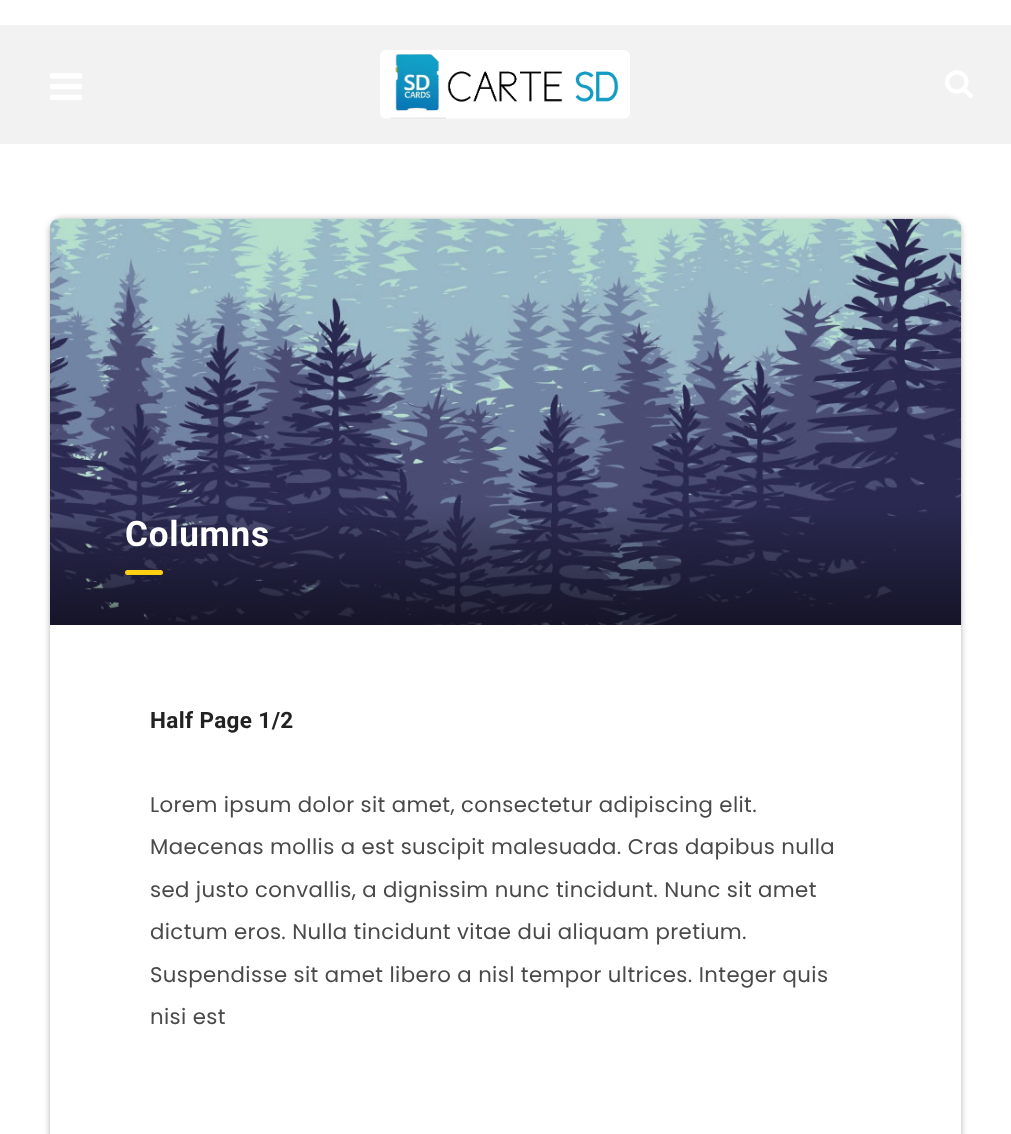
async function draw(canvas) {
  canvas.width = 1011;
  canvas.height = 1134;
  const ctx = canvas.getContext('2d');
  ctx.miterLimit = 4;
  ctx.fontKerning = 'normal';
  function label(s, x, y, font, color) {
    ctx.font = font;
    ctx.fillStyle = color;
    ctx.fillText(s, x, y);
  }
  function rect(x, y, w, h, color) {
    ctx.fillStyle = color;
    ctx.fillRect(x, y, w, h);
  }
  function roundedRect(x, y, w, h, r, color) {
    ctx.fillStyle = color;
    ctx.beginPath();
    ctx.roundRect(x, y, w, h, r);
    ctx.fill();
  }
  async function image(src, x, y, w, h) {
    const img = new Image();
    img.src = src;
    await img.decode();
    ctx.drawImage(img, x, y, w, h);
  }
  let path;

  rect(0, 0, 1011, 1134, '#fff');
  rect(0, 25, 1011, 119, '#f2f2f2');
  await image('assets/img1.png', 50, 73, 32, 27);
  await image('assets/img2.png', 380, 50, 250, 69);
  await image('assets/img3.png', 945, 70, 28, 28);
  ctx.fillStyle = '#0000004d';
  ctx.filter = 'blur(3px)';
  ctx.beginPath();
  ctx.roundRect(50, 219, 911, 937, 13);
  ctx.fill();
  ctx.filter = 'none';
  ctx.fillStyle = '#fff';
  path = new Path2D('M63 219H948C955 219 961 225 961 232V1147H50V232C50 225 56 219 63 219Z');
  ctx.fill(path);
  await image('assets/img4.png', 50, 218, 912, 407);
  ctx.letterSpacing = '0.75px';
  label('Columns', 125, 546, 'bold 35px Roboto', '#fff');
  roundedRect(125, 570, 38, 5, 2.5, '#ffd012');
  ctx.letterSpacing = '0.38px';
  label('Half Page 1/2', 150, 728, 'bold 22.5px Roboto', '#222');
  label('Lorem ipsum dolor sit amet, consectetur adipiscing elit.', 150, 812, '21.25px Poppins', '#494949');
  label('Maecenas mollis a est suscipit malesuada. Cras dapibus nulla', 150, 854, '21.25px Poppins', '#494949');
  label('sed justo convallis, a dignissim nunc tincidunt. Nunc sit amet', 150, 897, '21.25px Poppins', '#494949');
  label('dictum eros. Nulla tincidunt vitae dui aliquam pretium.', 150, 939, '21.25px Poppins', '#494949');
  label('Suspendisse sit amet libero a nisl tempor ultrices. Integer quis', 150, 982, '21.25px Poppins', '#494949');
  label('nisi est', 150, 1024, '21.25px Poppins', '#494949');
}

draw(document.querySelector('canvas'));
